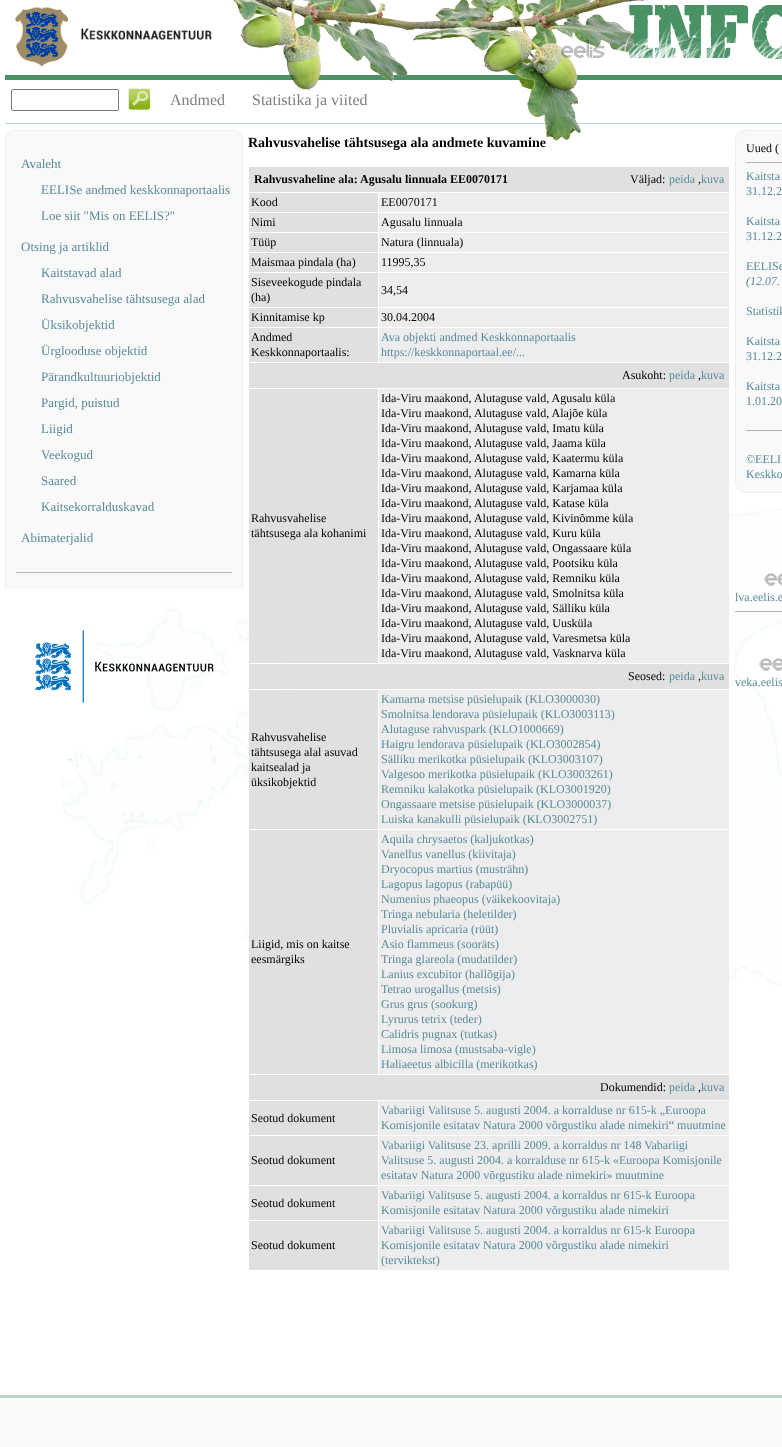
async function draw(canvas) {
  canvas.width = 782;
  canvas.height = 1447;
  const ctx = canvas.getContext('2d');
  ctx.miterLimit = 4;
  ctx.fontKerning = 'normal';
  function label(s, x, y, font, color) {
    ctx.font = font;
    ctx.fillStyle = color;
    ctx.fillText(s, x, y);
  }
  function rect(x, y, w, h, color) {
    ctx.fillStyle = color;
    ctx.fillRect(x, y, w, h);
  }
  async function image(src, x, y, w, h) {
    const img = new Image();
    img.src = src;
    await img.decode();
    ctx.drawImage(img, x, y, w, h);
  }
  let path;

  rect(0, 0, 782, 1447, '#f9fbf9');
  rect(0, 0, 782, 1395, '#fff');
  await image('assets/img1.png', 61, 462, 721, 537);
  await image('assets/img2.png', 15, 7, 197, 60);
  rect(5, 75, 777, 5, '#4a9165');
  await image('assets/img3.png', 233, 0, 232, 91);
  rect(5, 123, 777, 1, '#bad5c4');
  label('Rahvusvahelise tähtsusega ala andmete kuvamine', 248, 147, 'bold 14px Liberation Serif', '#000');
  await image('assets/img4.png', 465, 0, 183, 141);
  await image('assets/img5.png', 561, 5, 221, 54);
  ctx.beginPath();
  ctx.roundRect(11.5, 89.5, 107, 21, 1.5);
  ctx.strokeStyle = '#767676';
  ctx.stroke();
  await image('assets/img6.png', 128, 88, 22, 22);
  label('Andmed', 170, 105, '16px Liberation Serif', '#7f7f7f');
  label('Statistika ja viited', 252, 105, '16px Liberation Serif', '#7f7f7f');
  ctx.fillStyle = '#f9f9f9';
  ctx.beginPath();
  ctx.roundRect(6, 131, 236, 425, [9, 9, 0, 0]);
  ctx.fill();
  ctx.fillStyle = '#ededed';
  path = new Path2D('M15 130H233C239 130 243 134 243 140V556H5V140C5 134 9 130 15 130ZM15 131H233C238 131 242 135 242 140V556H6V140C6 135 10 131 15 131Z');
  ctx.fill(path, 'evenodd');
  label('Avaleht', 21, 168, '13px Liberation Serif', '#598a9c');
  label('EELISe andmed keskkonnaportaalis', 41, 194, '13px Liberation Serif', '#598a9c');
  label('Loe siit "Mis on EELIS?"', 41, 220, '13px Liberation Serif', '#598a9c');
  label('Otsing ja artiklid', 21, 251, '13px Liberation Serif', '#598a9c');
  label('Kaitstavad alad', 41, 277, '13px Liberation Serif', '#598a9c');
  label('Rahvusvahelise tähtsusega alad', 41, 303, '13px Liberation Serif', '#598a9c');
  label('Üksikobjektid', 41, 329, '13px Liberation Serif', '#598a9c');
  label('Ürglooduse objektid', 41, 355, '13px Liberation Serif', '#598a9c');
  label('Pärandkultuuriobjektid', 41, 381, '13px Liberation Serif', '#598a9c');
  label('Pargid, puistud', 41, 407, '13px Liberation Serif', '#598a9c');
  label('Liigid', 41, 433, '13px Liberation Serif', '#598a9c');
  label('Veekogud', 41, 459, '13px Liberation Serif', '#598a9c');
  label('Saared', 41, 485, '13px Liberation Serif', '#598a9c');
  label('Kaitsekorralduskavad', 41, 511, '13px Liberation Serif', '#598a9c');
  label('Abimaterjalid', 21, 542, '13px Liberation Serif', '#598a9c');
  rect(6, 556, 236, 33, '#f9f9f9');
  rect(242, 556, 1, 33, '#ededed');
  rect(5, 556, 1, 33, '#ededed');
  rect(16, 572, 216, 1, '#b4b4b4');
  await image('assets/img7.png', 35, 630, 179, 73);
  rect(249, 167, 480, 25, '#e0e0e0');
  label('Rahvusvaheline ala: Agusalu linnuala EE0070171', 254, 183, 'bold 12px Liberation Serif', '#000');
  label('Väljad:', 630, 183, '12px Liberation Serif', '#000');
  label('peida', 669, 183, '12px Liberation Serif', '#598a9c');
  label(',', 698, 183, '12px Liberation Serif', '#000');
  label('kuva', 701, 183, '12px Liberation Serif', '#598a9c');
  rect(249, 193, 129, 19, '#e0e0e0');
  label('Kood', 251, 206, '12px Liberation Serif', '#000');
  rect(379, 193, 350, 19, '#ededed');
  label('EE0070171', 381, 206, '12px Liberation Serif', '#000');
  rect(249, 213, 129, 19, '#e0e0e0');
  label('Nimi', 251, 226, '12px Liberation Serif', '#000');
  rect(379, 213, 350, 19, '#ededed');
  label('Agusalu linnuala', 381, 226, '12px Liberation Serif', '#000');
  rect(249, 233, 129, 19, '#e0e0e0');
  label('Tüüp', 251, 246, '12px Liberation Serif', '#000');
  rect(379, 233, 350, 19, '#ededed');
  label('Natura (linnuala)', 381, 246, '12px Liberation Serif', '#000');
  rect(249, 253, 129, 19, '#e0e0e0');
  label('Maismaa pindala (ha)', 251, 266, '12px Liberation Serif', '#000');
  rect(379, 253, 350, 19, '#ededed');
  label('11995,35', 381, 266, '12px Liberation Serif', '#000');
  rect(249, 273, 129, 34, '#e0e0e0');
  label('Siseveekogude pindala', 251, 286, '12px Liberation Serif', '#000');
  label('(ha)', 251, 301, '12px Liberation Serif', '#000');
  rect(379, 273, 350, 34, '#ededed');
  label('34,54', 381, 294, '12px Liberation Serif', '#000');
  rect(249, 308, 129, 19, '#e0e0e0');
  label('Kinnitamise kp', 251, 321, '12px Liberation Serif', '#000');
  rect(379, 308, 350, 19, '#ededed');
  label('30.04.2004', 381, 321, '12px Liberation Serif', '#000');
  rect(249, 328, 129, 34, '#e0e0e0');
  label('Andmed', 251, 341, '12px Liberation Serif', '#000');
  label('Keskkonnaportaalis:', 251, 356, '12px Liberation Serif', '#000');
  rect(379, 328, 350, 34, '#ededed');
  label('Ava objekti andmed Keskkonnaportaalis', 381, 341, '12px Liberation Serif', '#598a9c');
  label('https://keskkonnaportaal.ee/...', 381, 356, '12px Liberation Serif', '#598a9c');
  rect(249, 363, 480, 25, '#e0e0e0');
  label('Asukoht:', 622, 379, '12px Liberation Serif', '#000');
  label('peida', 669, 379, '12px Liberation Serif', '#598a9c');
  label(',', 698, 379, '12px Liberation Serif', '#000');
  label('kuva', 701, 379, '12px Liberation Serif', '#598a9c');
  rect(249, 389, 129, 274, '#e0e0e0');
  label('Rahvusvahelise', 251, 522, '12px Liberation Serif', '#000');
  label('tähtsusega ala kohanimi', 251, 537, '12px Liberation Serif', '#000');
  rect(379, 389, 350, 274, '#ededed');
  label('Ida-Viru maakond, Alutaguse vald, Agusalu küla', 381, 402, '12px Liberation Serif', '#000');
  label('Ida-Viru maakond, Alutaguse vald, Alajõe küla', 381, 417, '12px Liberation Serif', '#000');
  label('Ida-Viru maakond, Alutaguse vald, Imatu küla', 381, 432, '12px Liberation Serif', '#000');
  label('Ida-Viru maakond, Alutaguse vald, Jaama küla', 381, 447, '12px Liberation Serif', '#000');
  label('Ida-Viru maakond, Alutaguse vald, Kaatermu küla', 381, 462, '12px Liberation Serif', '#000');
  label('Ida-Viru maakond, Alutaguse vald, Kamarna küla', 381, 477, '12px Liberation Serif', '#000');
  label('Ida-Viru maakond, Alutaguse vald, Karjamaa küla', 381, 492, '12px Liberation Serif', '#000');
  label('Ida-Viru maakond, Alutaguse vald, Katase küla', 381, 507, '12px Liberation Serif', '#000');
  label('Ida-Viru maakond, Alutaguse vald, Kivinõmme küla', 381, 522, '12px Liberation Serif', '#000');
  label('Ida-Viru maakond, Alutaguse vald, Kuru küla', 381, 537, '12px Liberation Serif', '#000');
  label('Ida-Viru maakond, Alutaguse vald, Ongassaare küla', 381, 552, '12px Liberation Serif', '#000');
  label('Ida-Viru maakond, Alutaguse vald, Pootsiku küla', 381, 567, '12px Liberation Serif', '#000');
  label('Ida-Viru maakond, Alutaguse vald, Remniku küla', 381, 582, '12px Liberation Serif', '#000');
  label('Ida-Viru maakond, Alutaguse vald, Smolnitsa küla', 381, 597, '12px Liberation Serif', '#000');
  label('Ida-Viru maakond, Alutaguse vald, Sälliku küla', 381, 612, '12px Liberation Serif', '#000');
  label('Ida-Viru maakond, Alutaguse vald, Uusküla', 381, 627, '12px Liberation Serif', '#000');
  label('Ida-Viru maakond, Alutaguse vald, Varesmetsa küla', 381, 642, '12px Liberation Serif', '#000');
  label('Ida-Viru maakond, Alutaguse vald, Vasknarva küla', 381, 657, '12px Liberation Serif', '#000');
  rect(249, 664, 480, 25, '#e0e0e0');
  label('Seosed:', 628, 680, '12px Liberation Serif', '#000');
  label('peida', 669, 680, '12px Liberation Serif', '#598a9c');
  label(',', 698, 680, '12px Liberation Serif', '#000');
  label('kuva', 701, 680, '12px Liberation Serif', '#598a9c');
  rect(249, 690, 129, 139, '#e0e0e0');
  label('Rahvusvahelise', 251, 741, '12px Liberation Serif', '#000');
  label('tähtsusega alal asuvad', 251, 756, '12px Liberation Serif', '#000');
  label('kaitsealad ja', 251, 771, '12px Liberation Serif', '#000');
  label('üksikobjektid', 251, 786, '12px Liberation Serif', '#000');
  rect(379, 690, 350, 139, '#ededed');
  label('Kamarna metsise püsielupaik (KLO3000030)', 381, 703, '12px Liberation Serif', '#598a9c');
  label('Smolnitsa lendorava püsielupaik (KLO3003113)', 381, 718, '12px Liberation Serif', '#598a9c');
  label('Alutaguse rahvuspark (KLO1000669)', 381, 733, '12px Liberation Serif', '#598a9c');
  label('Haigru lendorava püsielupaik (KLO3002854)', 381, 748, '12px Liberation Serif', '#598a9c');
  label('Sälliku merikotka püsielupaik (KLO3003107)', 381, 763, '12px Liberation Serif', '#598a9c');
  label('Valgesoo merikotka püsielupaik (KLO3003261)', 381, 778, '12px Liberation Serif', '#598a9c');
  label('Remniku kalakotka püsielupaik (KLO3001920)', 381, 793, '12px Liberation Serif', '#598a9c');
  label('Ongassaare metsise püsielupaik (KLO3000037)', 381, 808, '12px Liberation Serif', '#598a9c');
  label('Luiska kanakulli püsielupaik (KLO3002751)', 381, 823, '12px Liberation Serif', '#598a9c');
  rect(249, 830, 129, 244, '#e0e0e0');
  label('Liigid, mis on kaitse', 251, 948, '12px Liberation Serif', '#000');
  label('eesmärgiks', 251, 963, '12px Liberation Serif', '#000');
  rect(379, 830, 350, 244, '#ededed');
  label('Aquila chrysaetos (kaljukotkas)', 381, 843, '12px Liberation Serif', '#598a9c');
  label('Vanellus vanellus (kiivitaja)', 381, 858, '12px Liberation Serif', '#598a9c');
  label('Dryocopus martius (musträhn)', 381, 873, '12px Liberation Serif', '#598a9c');
  label('Lagopus lagopus (rabapüü)', 381, 888, '12px Liberation Serif', '#598a9c');
  label('Numenius phaeopus (väikekoovitaja)', 381, 903, '12px Liberation Serif', '#598a9c');
  label('Tringa nebularia (heletilder)', 381, 918, '12px Liberation Serif', '#598a9c');
  label('Pluvialis apricaria (rüüt)', 381, 933, '12px Liberation Serif', '#598a9c');
  label('Asio flammeus (sooräts)', 381, 948, '12px Liberation Serif', '#598a9c');
  label('Tringa glareola (mudatilder)', 381, 963, '12px Liberation Serif', '#598a9c');
  label('Lanius excubitor (hallõgija)', 381, 978, '12px Liberation Serif', '#598a9c');
  label('Tetrao urogallus (metsis)', 381, 993, '12px Liberation Serif', '#598a9c');
  label('Grus grus (sookurg)', 381, 1008, '12px Liberation Serif', '#598a9c');
  label('Lyrurus tetrix (teder)', 381, 1023, '12px Liberation Serif', '#598a9c');
  label('Calidris pugnax (tutkas)', 381, 1038, '12px Liberation Serif', '#598a9c');
  label('Limosa limosa (mustsaba-vigle)', 381, 1053, '12px Liberation Serif', '#598a9c');
  label('Haliaeetus albicilla (merikotkas)', 381, 1068, '12px Liberation Serif', '#598a9c');
  rect(249, 1075, 480, 25, '#e0e0e0');
  label('Dokumendid:', 600, 1091, '12px Liberation Serif', '#000');
  label('peida', 669, 1091, '12px Liberation Serif', '#598a9c');
  label(',', 698, 1091, '12px Liberation Serif', '#000');
  label('kuva', 701, 1091, '12px Liberation Serif', '#598a9c');
  rect(249, 1101, 129, 34, '#e0e0e0');
  label('Seotud dokument', 251, 1122, '12px Liberation Serif', '#000');
  rect(379, 1101, 350, 34, '#ededed');
  label('Vabariigi Valitsuse 5. augusti 2004. a korralduse nr 615-k „Euroopa', 381, 1114, '12px Liberation Serif', '#598a9c');
  label('Komisjonile esitatav Natura 2000 võrgustiku alade nimekiri“ muutmine', 381, 1129, '12px Liberation Serif', '#598a9c');
  rect(249, 1136, 129, 49, '#e0e0e0');
  label('Seotud dokument', 251, 1164, '12px Liberation Serif', '#000');
  rect(379, 1136, 350, 49, '#ededed');
  label('Vabariigi Valitsuse 23. aprilli 2009. a korraldus nr 148 Vabariigi', 381, 1149, '12px Liberation Serif', '#598a9c');
  label('Valitsuse 5. augusti 2004. a korralduse nr 615-k «Euroopa Komisjonile', 381, 1164, '12px Liberation Serif', '#598a9c');
  label('esitatav Natura 2000 võrgustiku alade nimekiri» muutmine', 381, 1179, '12px Liberation Serif', '#598a9c');
  rect(249, 1186, 129, 34, '#e0e0e0');
  label('Seotud dokument', 251, 1207, '12px Liberation Serif', '#000');
  rect(379, 1186, 350, 34, '#ededed');
  label('Vabariigi Valitsuse 5. augusti 2004. a korraldus nr 615-k Euroopa', 381, 1199, '12px Liberation Serif', '#598a9c');
  label('Komisjonile esitatav Natura 2000 võrgustiku alade nimekiri', 381, 1214, '12px Liberation Serif', '#598a9c');
  rect(249, 1221, 129, 49, '#e0e0e0');
  label('Seotud dokument', 251, 1249, '12px Liberation Serif', '#000');
  rect(379, 1221, 350, 49, '#ededed');
  label('Vabariigi Valitsuse 5. augusti 2004. a korraldus nr 615-k Euroopa', 381, 1234, '12px Liberation Serif', '#598a9c');
  label('Komisjonile esitatav Natura 2000 võrgustiku alade nimekiri', 381, 1249, '12px Liberation Serif', '#598a9c');
  label('(terviktekst)', 381, 1264, '12px Liberation Serif', '#598a9c');
  ctx.fillStyle = '#f9f9f9';
  ctx.beginPath();
  ctx.roundRect(735.5, 130.5, 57, 362, 9.5);
  ctx.fill();
  ctx.strokeStyle = '#ededed';
  ctx.stroke();
  label('Uued (', 746, 152, '12px Liberation Serif', '#000');
  rect(746, 162, 36, 1, '#b4b4b4');
  label('Kaitsta', 746, 180, '12px Liberation Serif', '#598a9c');
  label('31.12.2', 746, 195, '12px Liberation Serif', '#598a9c');
  label('Kaitsta', 746, 225, '12px Liberation Serif', '#598a9c');
  label('31.12.2', 746, 240, '12px Liberation Serif', '#598a9c');
  label('EELISe', 746, 270, '12px Liberation Serif', '#598a9c');
  label('(12.07.', 746, 285, 'italic 12px Liberation Serif', '#598a9c');
  label('Statistik', 746, 315, '12px Liberation Serif', '#598a9c');
  label('Kaitsta', 746, 345, '12px Liberation Serif', '#598a9c');
  label('31.12.2', 746, 360, '12px Liberation Serif', '#598a9c');
  label('Kaitsta', 746, 390, '12px Liberation Serif', '#598a9c');
  label('1.01.20', 746, 405, '12px Liberation Serif', '#598a9c');
  rect(746, 430, 36, 1, '#b4b4b4');
  label('©EELI', 746, 463, '12px Liberation Serif', '#598a9c');
  label('Keskko', 746, 478, '12px Liberation Serif', '#598a9c');
  await image('assets/img8.png', 764, 573, 18, 13);
  label('lva.eelis.e', 735, 601, '12px Liberation Serif', '#598a9c');
  rect(735, 611, 47, 1, '#b4b4b4');
  await image('assets/img9.png', 759, 658, 23, 13);
  label('veka.eelis', 735, 686, '12px Liberation Serif', '#598a9c');
  await image('assets/img10.png', 0, 1395, 782, 5);
}

draw(document.querySelector('canvas'));
